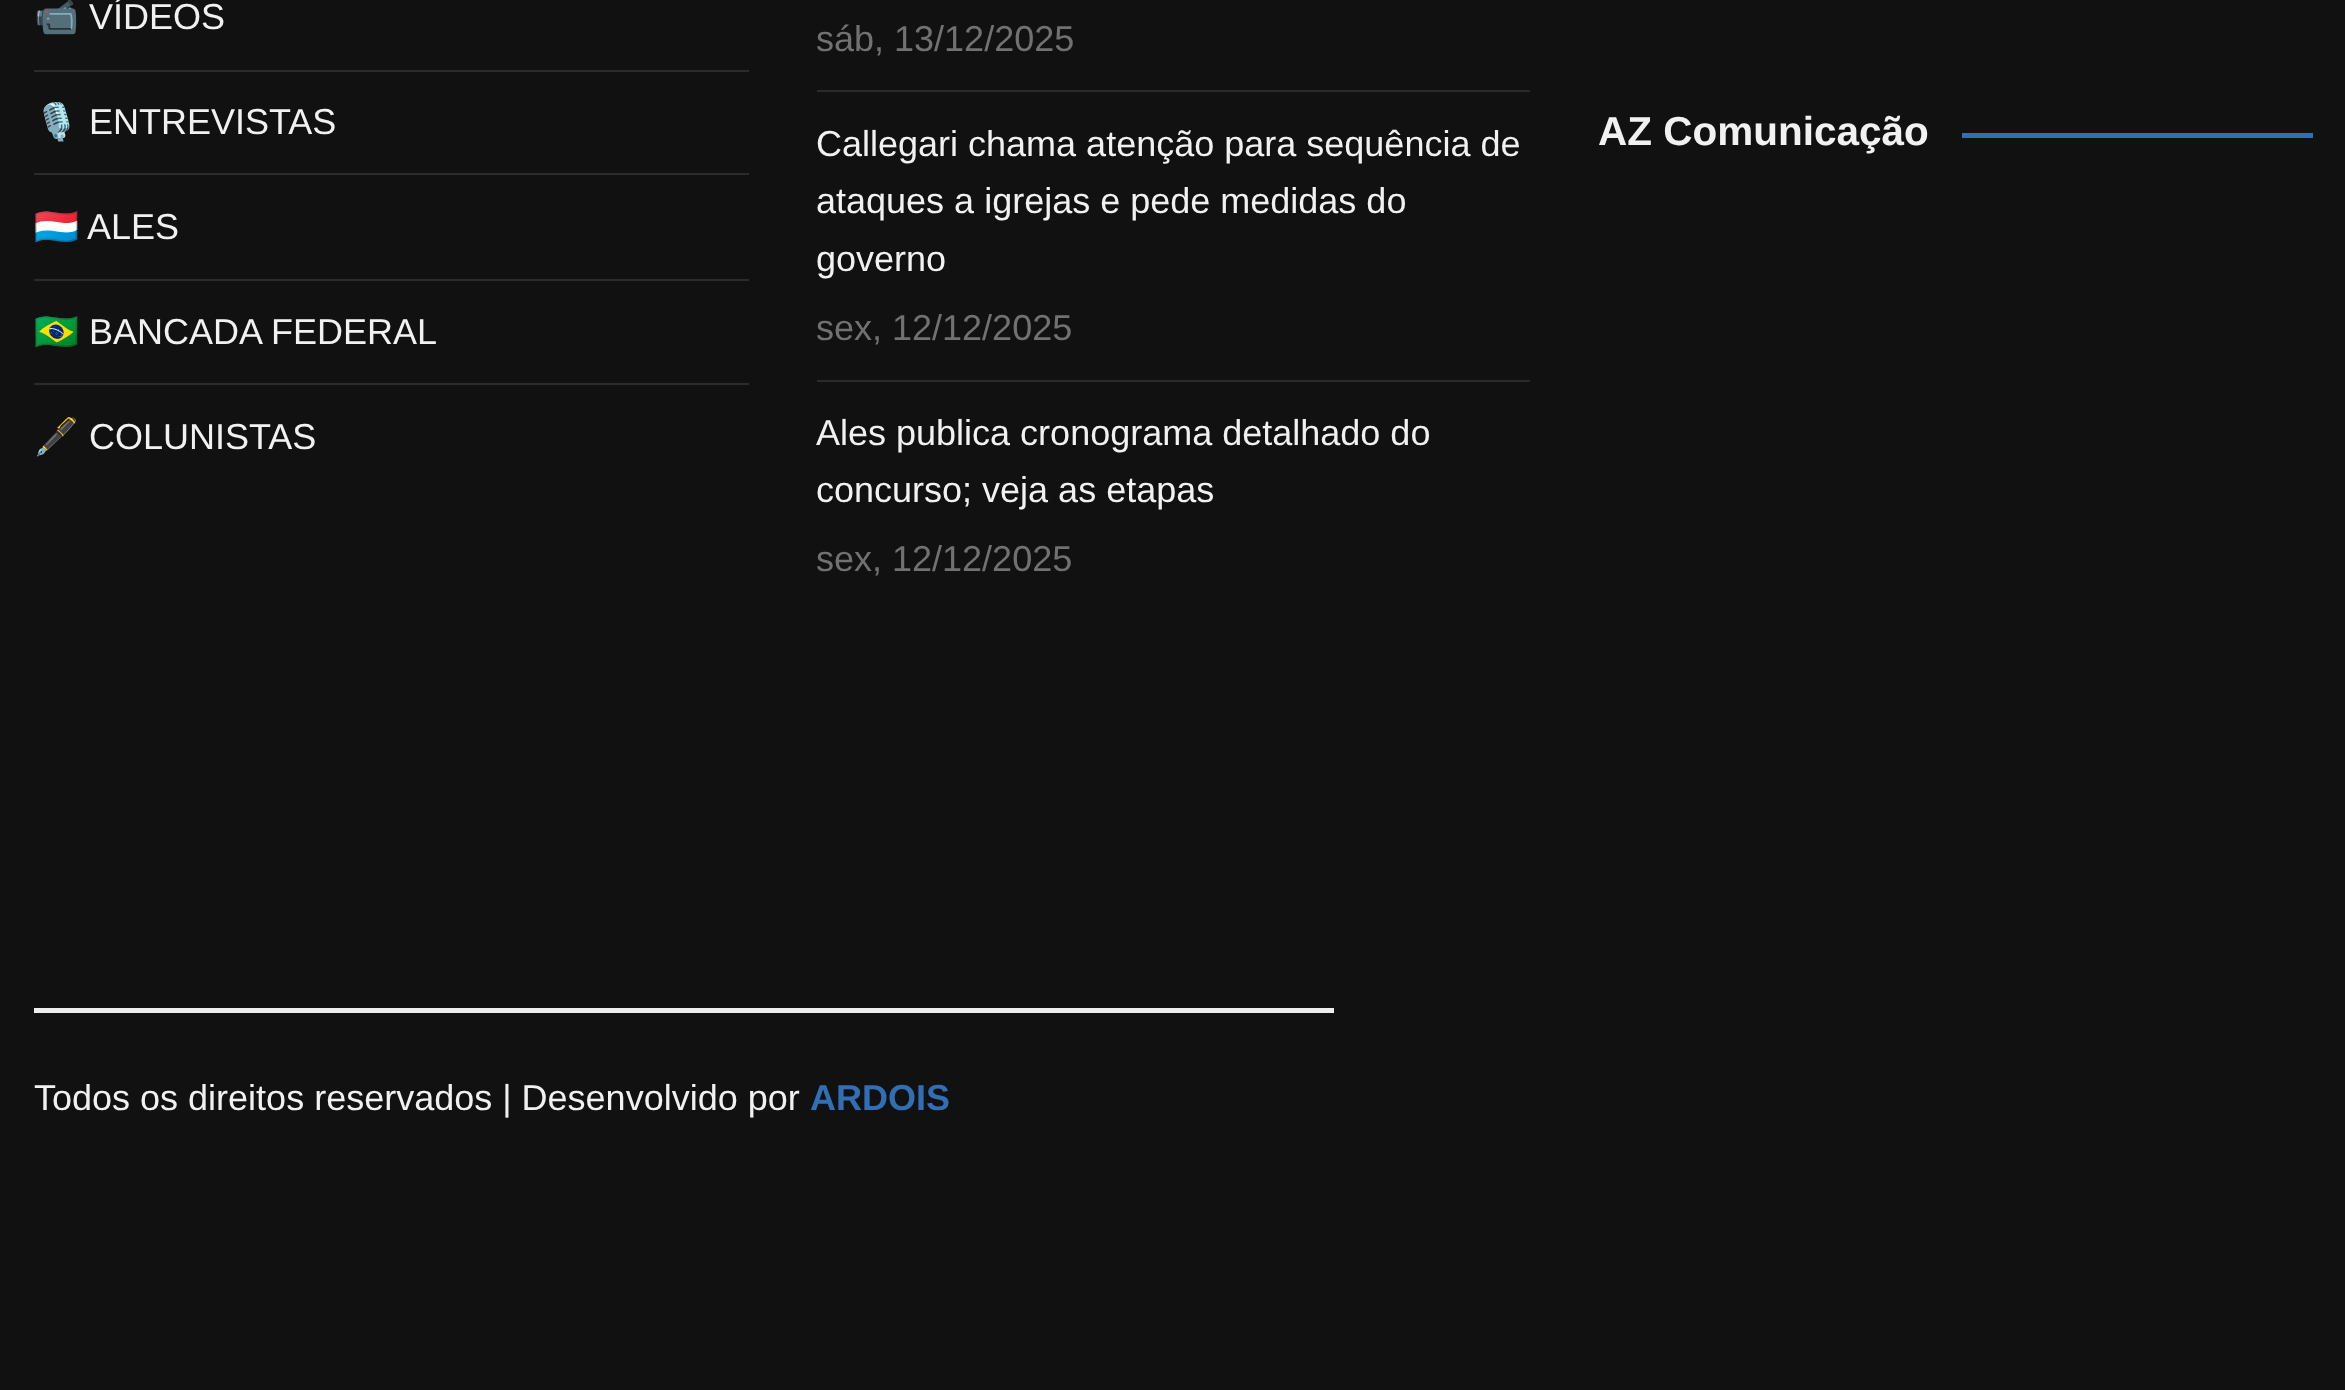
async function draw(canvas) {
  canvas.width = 2345;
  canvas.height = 1390;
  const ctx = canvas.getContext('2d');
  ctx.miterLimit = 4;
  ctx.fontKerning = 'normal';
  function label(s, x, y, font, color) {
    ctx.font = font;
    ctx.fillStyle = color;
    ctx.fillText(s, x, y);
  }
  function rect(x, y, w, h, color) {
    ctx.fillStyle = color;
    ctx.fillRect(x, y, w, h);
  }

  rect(0, 0, 2345, 1390, '#111');
  rect(34, 70, 715, 2, '#2b2b2b');
  label('📹', 34, 29, '36px Noto Color Emoji', '#f1f1f1');
  label('VÍDEOS', 89, 29, '36px Liberation Sans', '#f1f1f1');
  rect(34, 173, 715, 2, '#2b2b2b');
  label('🎙️', 34, 134, '36px Noto Color Emoji', '#f1f1f1');
  label('ENTREVISTAS', 89, 134, '36px Liberation Sans', '#f1f1f1');
  rect(34, 279, 715, 2, '#2b2b2b');
  label('🇱🇺', 34, 239, '36px Noto Color Emoji', '#f1f1f1');
  label('ALES', 87, 239, '36px Liberation Sans', '#f1f1f1');
  rect(34, 383, 715, 2, '#2b2b2b');
  label('🇧🇷', 34, 344, '36px Noto Color Emoji', '#f1f1f1');
  label('BANCADA FEDERAL', 89, 344, '36px Liberation Sans', '#f1f1f1');
  label('🖋️', 34, 449, '36px Noto Color Emoji', '#f1f1f1');
  label('COLUNISTAS', 89, 449, '36px Liberation Sans', '#f1f1f1');
  rect(817, 90, 713, 2, '#2b2b2b');
  label('sáb, 13/12/2025', 816, 51, '36px Liberation Sans', '#717171');
  rect(817, 380, 713, 2, '#2b2b2b');
  label('Callegari chama atenção para sequência de', 816, 156, '36px Liberation Sans', '#f1f1f1');
  label('ataques a igrejas e pede medidas do', 816, 213, '36px Liberation Sans', '#f1f1f1');
  label('governo', 816, 271, '36px Liberation Sans', '#f1f1f1');
  label('sex, 12/12/2025', 816, 340, '36px Liberation Sans', '#717171');
  label('Ales publica cronograma detalhado do', 816, 445, '36px Liberation Sans', '#f1f1f1');
  label('concurso; veja as etapas', 816, 502, '36px Liberation Sans', '#f1f1f1');
  label('sex, 12/12/2025', 816, 571, '36px Liberation Sans', '#717171');
  label('AZ Comunicação', 1598, 145, 'bold 40.5px Liberation Sans', '#f1f1f1');
  rect(1962, 133, 351, 5, '#326eb3');
  rect(34, 1008, 1300, 5, '#eee');
  label('Todos os direitos reservados | Desenvolvido por', 34, 1110, '36px Liberation Sans', '#f1f1f1');
  label('ARDOIS', 810, 1110, 'bold 36px Liberation Sans', '#326eb3');
}

draw(document.querySelector('canvas'));
